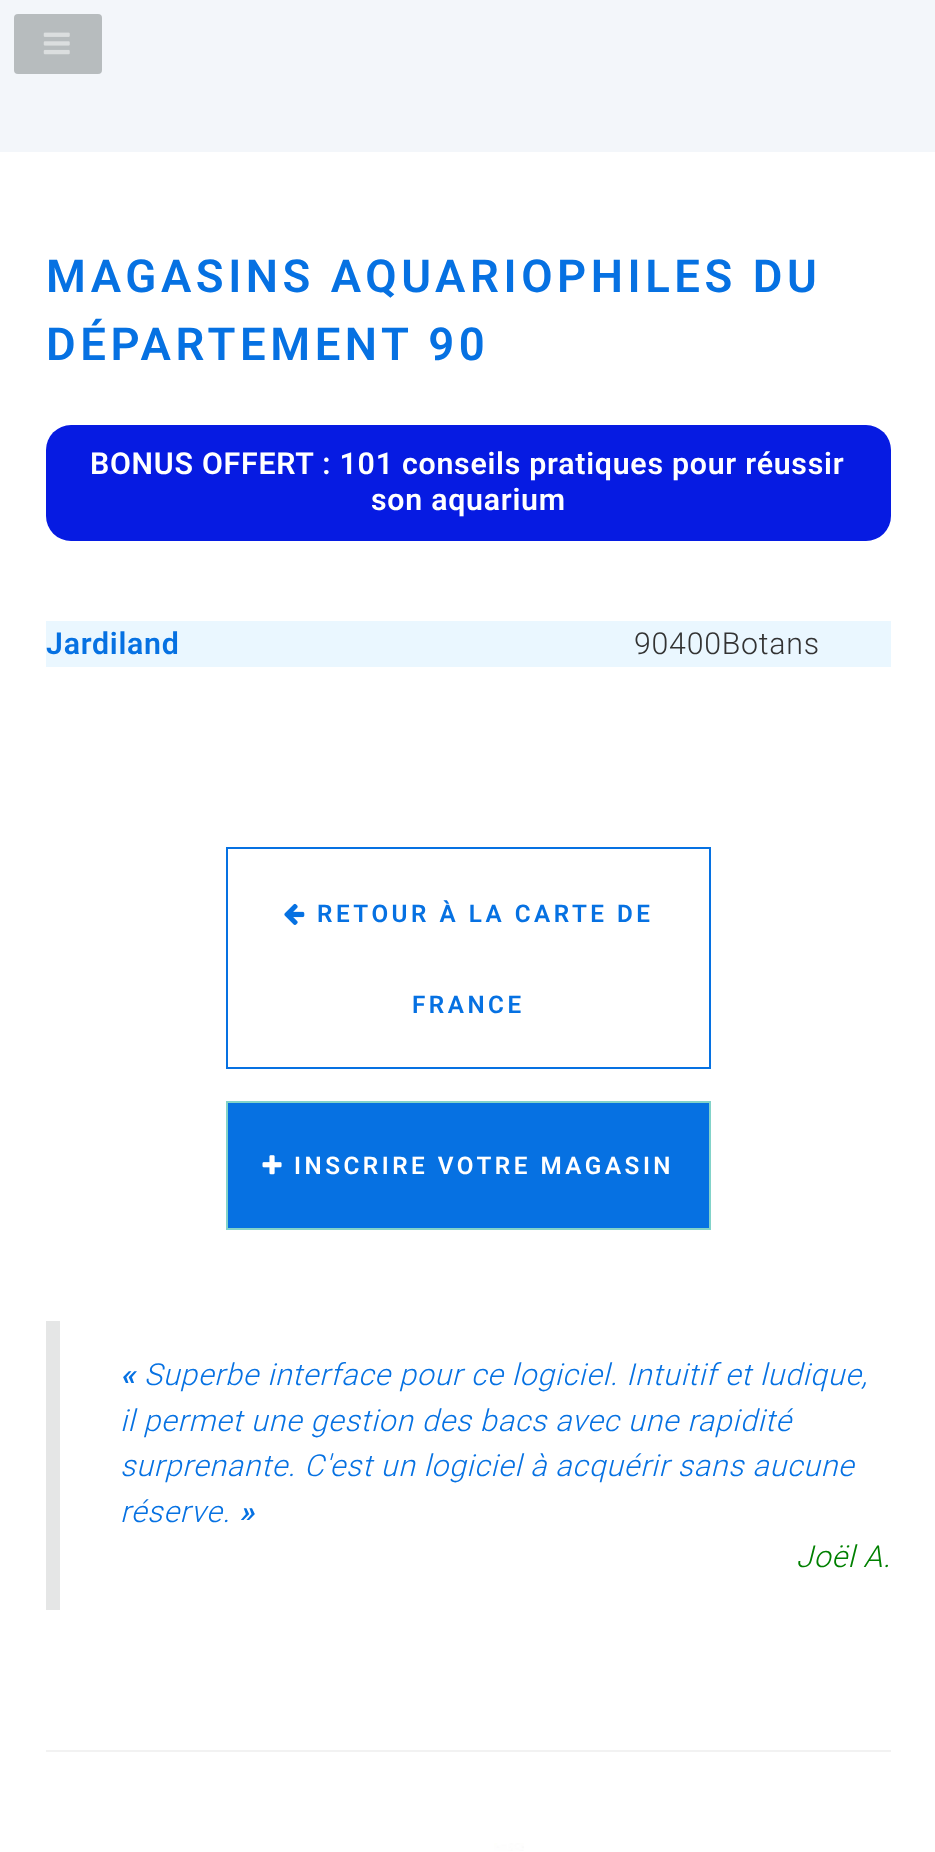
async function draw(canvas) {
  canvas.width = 935;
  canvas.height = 1852;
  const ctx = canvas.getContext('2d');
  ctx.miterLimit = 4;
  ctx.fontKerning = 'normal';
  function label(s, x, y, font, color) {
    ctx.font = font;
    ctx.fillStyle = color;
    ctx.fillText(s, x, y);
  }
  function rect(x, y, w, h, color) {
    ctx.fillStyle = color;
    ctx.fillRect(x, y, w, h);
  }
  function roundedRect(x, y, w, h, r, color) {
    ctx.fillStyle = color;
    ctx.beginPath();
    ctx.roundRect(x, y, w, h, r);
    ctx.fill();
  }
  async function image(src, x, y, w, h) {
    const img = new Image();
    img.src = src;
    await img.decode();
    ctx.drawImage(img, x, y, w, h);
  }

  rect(0, 0, 935, 1852, '#f3f6fa');
  roundedRect(14, 14, 88, 60, 4, '#b7bcbe');
  await image('assets/img1.png', 43, 32, 27, 23);
  rect(0, 152, 935, 1700, '#fff');
  ctx.letterSpacing = '4.55px';
  label('MAGASINS AQUARIOPHILES DU', 46, 292, '600 45.5px Roboto', '#0671e2');
  label('DÉPARTEMENT 90', 46, 360, '600 45.5px Roboto', '#0671e2');
  roundedRect(46, 425, 845, 116, 25, '#061be2');
  ctx.letterSpacing = '0.75px';
  label('BONUS OFFERT : 101 conseils pratiques pour réussir', 90, 474, '600 30.3px Roboto', '#fff');
  label('son aquarium', 371, 510, '600 30.3px Roboto', '#fff');
  rect(46, 621, 845, 46, '#eaf7ff');
  label('Jardiland', 46, 654, '600 30.3px Roboto', '#0671e2');
  label('90400Botans', 634, 654, '300 30.3px Roboto', '#333');
  ctx.strokeStyle = '#0671e2';
  ctx.lineWidth = 2;
  ctx.strokeRect(227, 848, 483, 220);
  await image('assets/img2.png', 284, 903, 21, 22);
  ctx.letterSpacing = '3.5px';
  label('RETOUR À LA CARTE DE', 317, 922, '600 24.25px Roboto', '#0671e2');
  label('FRANCE', 412, 1013, '600 24.25px Roboto', '#0671e2');
  ctx.beginPath();
  ctx.rect(227, 1102, 483, 127);
  ctx.fill();
  ctx.strokeStyle = '#83d3c9';
  ctx.stroke();
  await image('assets/img3.png', 262, 1155, 20, 20);
  label('INSCRIRE VOTRE MAGASIN', 294, 1174, '600 24.25px Roboto', '#fff');
  rect(46, 1321, 14, 289, '#e5e6e6');
  ctx.letterSpacing = '0.75px';
  label('«', 120, 1385, 'italic 600 30.3px Roboto', '#0671e2');
  label('Superbe interface pour ce logiciel. Intuitif et ludique,', 144, 1385, 'italic 300 30.3px Roboto', '#0671e2');
  label('il permet une gestion des bacs avec une rapidité', 120, 1431, 'italic 300 30.3px Roboto', '#0671e2');
  label('surprenante. C\'est un logiciel à acquérir sans aucune', 120, 1476, 'italic 300 30.3px Roboto', '#0671e2');
  label('réserve.', 120, 1522, 'italic 300 30.3px Roboto', '#0671e2');
  label('»', 239, 1522, 'italic 600 30.3px Roboto', '#0671e2');
  label('Joël A.', 796, 1567, 'italic 300 30.3px Roboto', '#008000');
  rect(46, 1750, 845, 2, '#f2f2f2');
  await image('assets/img4.png', 494, 1843, 30, 8);
}

draw(document.querySelector('canvas'));
